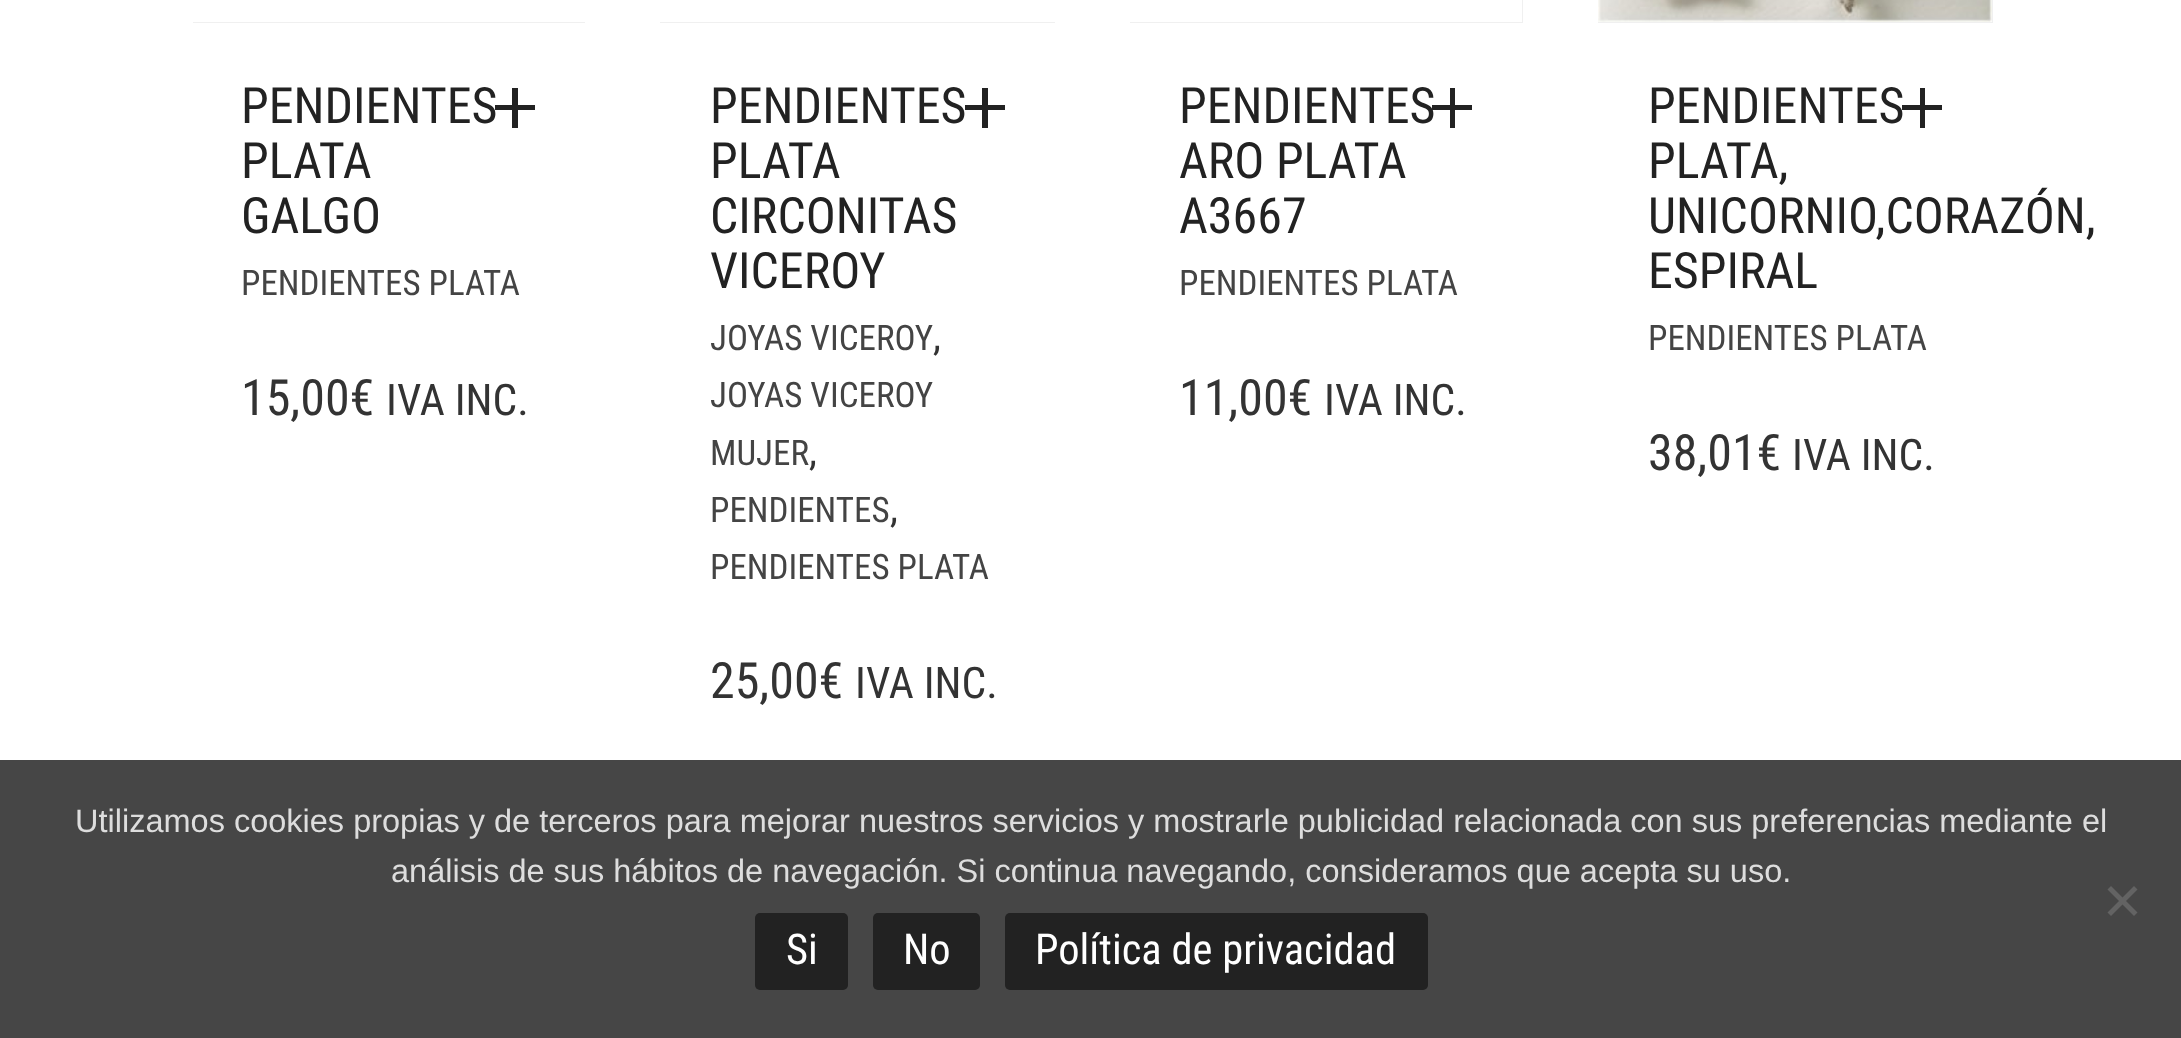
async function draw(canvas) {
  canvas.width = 2181;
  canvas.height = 1038;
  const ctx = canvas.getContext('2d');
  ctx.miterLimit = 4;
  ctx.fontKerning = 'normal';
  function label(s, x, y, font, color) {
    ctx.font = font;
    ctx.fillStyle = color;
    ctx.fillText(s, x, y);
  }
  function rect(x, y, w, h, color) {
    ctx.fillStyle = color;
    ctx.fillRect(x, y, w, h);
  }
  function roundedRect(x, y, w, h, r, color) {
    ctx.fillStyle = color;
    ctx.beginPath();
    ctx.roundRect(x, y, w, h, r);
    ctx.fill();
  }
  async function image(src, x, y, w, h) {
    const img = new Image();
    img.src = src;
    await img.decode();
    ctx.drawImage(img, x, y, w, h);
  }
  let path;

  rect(0, 0, 2181, 1038, '#fff');
  rect(193, 22, 392, 1, '#f0f0f0');
  label('PENDIENTES', 241, 123, '50px Roboto Condensed', '#222');
  label('PLATA', 241, 178, '50px Roboto Condensed', '#222');
  label('GALGO', 241, 233, '50px Roboto Condensed', '#222');
  path = new Path2D('M535 110H518V128H512V110H495V105H512V88H518V105H535Z');
  ctx.fill(path);
  label('PENDIENTES PLATA', 241, 295, '35px Roboto Condensed', '#444');
  label('15,00€', 241, 415, '50px Roboto Condensed', '#333');
  label('IVA INC.', 386, 415, '43.5px Roboto Condensed', '#333');
  rect(660, 22, 395, 1, '#f0f0f0');
  label('PENDIENTES', 710, 123, '50px Roboto Condensed', '#222');
  label('PLATA', 710, 178, '50px Roboto Condensed', '#222');
  label('CIRCONITAS', 710, 233, '50px Roboto Condensed', '#222');
  label('VICEROY', 710, 288, '50px Roboto Condensed', '#222');
  path = new Path2D('M1005 110H988V128H982V110H965V105H982V88H988V105H1005Z');
  ctx.fill(path);
  label('JOYAS VICEROY', 710, 350, '35px Roboto Condensed', '#444');
  label(',', 933, 350, '40px Roboto Condensed', '#333');
  label('JOYAS VICEROY', 710, 407, '35px Roboto Condensed', '#444');
  label('MUJER', 710, 465, '35px Roboto Condensed', '#444');
  label(',', 809, 465, '40px Roboto Condensed', '#333');
  label('PENDIENTES', 710, 522, '35px Roboto Condensed', '#444');
  label(',', 890, 522, '40px Roboto Condensed', '#333');
  label('PENDIENTES PLATA', 710, 579, '35px Roboto Condensed', '#444');
  label('25,00€', 710, 698, '50px Roboto Condensed', '#333');
  label('IVA INC.', 855, 698, '43.5px Roboto Condensed', '#333');
  rect(1130, 0, 393, 23, '#f0f0f0');
  rect(1130, 0, 392, 22, '#fff');
  label('PENDIENTES', 1179, 123, '50px Roboto Condensed', '#222');
  label('ARO PLATA', 1179, 178, '50px Roboto Condensed', '#222');
  label('A3667', 1179, 233, '50px Roboto Condensed', '#222');
  path = new Path2D('M1472 110H1455V128H1450V110H1432V105H1450V88H1455V105H1472Z');
  ctx.fill(path);
  label('PENDIENTES PLATA', 1179, 295, '35px Roboto Condensed', '#444');
  label('11,00€', 1179, 415, '50px Roboto Condensed', '#333');
  label('IVA INC.', 1324, 415, '43.5px Roboto Condensed', '#333');
  rect(1598, 0, 395, 23, '#f0f0f0');
  await image('assets/img1.png', 1598, 0, 394, 22);
  label('PENDIENTES', 1648, 123, '50px Roboto Condensed', '#222');
  label('PLATA,', 1648, 178, '50px Roboto Condensed', '#222');
  label('UNICORNIO,CORAZÓN,', 1648, 233, '50px Roboto Condensed', '#222');
  label('ESPIRAL', 1648, 288, '50px Roboto Condensed', '#222');
  path = new Path2D('M1942 110H1925V128H1920V110H1902V105H1920V88H1925V105H1942Z');
  ctx.fill(path);
  label('PENDIENTES PLATA', 1648, 350, '35px Roboto Condensed', '#444');
  label('38,01€', 1648, 470, '50px Roboto Condensed', '#333');
  label('IVA INC.', 1792, 470, '43.5px Roboto Condensed', '#333');
  rect(0, 760, 2181, 278, '#464646');
  label('Utilizamos cookies propias y de terceros para mejorar nuestros servicios y mostrarle publicidad relacionada con sus preferencias mediante el', 75, 832, '32.5px Liberation Sans', '#ddd');
  label('análisis de sus hábitos de navegación. Si continua navegando, consideramos que acepta su uso.', 391, 882, '32.5px Liberation Sans', '#ddd');
  ctx.fillStyle = '#636363';
  path = new Path2D('M2134 886L2137.5 889.5L2111 916L2107.5 912.5Z');
  ctx.fill(path);
  path = new Path2D('M2107.5 889.5L2111 886L2137.5 912.5L2134 916Z');
  ctx.fill(path);
  roundedRect(755, 913, 93, 77, 5, '#222');
  label('Si', 786, 964, '42.5px Roboto Condensed', '#fff');
  roundedRect(873, 913, 107, 77, 5, '#222');
  label('No', 903, 964, '42.5px Roboto Condensed', '#fff');
  roundedRect(1005, 913, 423, 77, 5, '#222');
  label('Política de privacidad', 1035, 964, '42.5px Roboto Condensed', '#fff');
}

draw(document.querySelector('canvas'));
